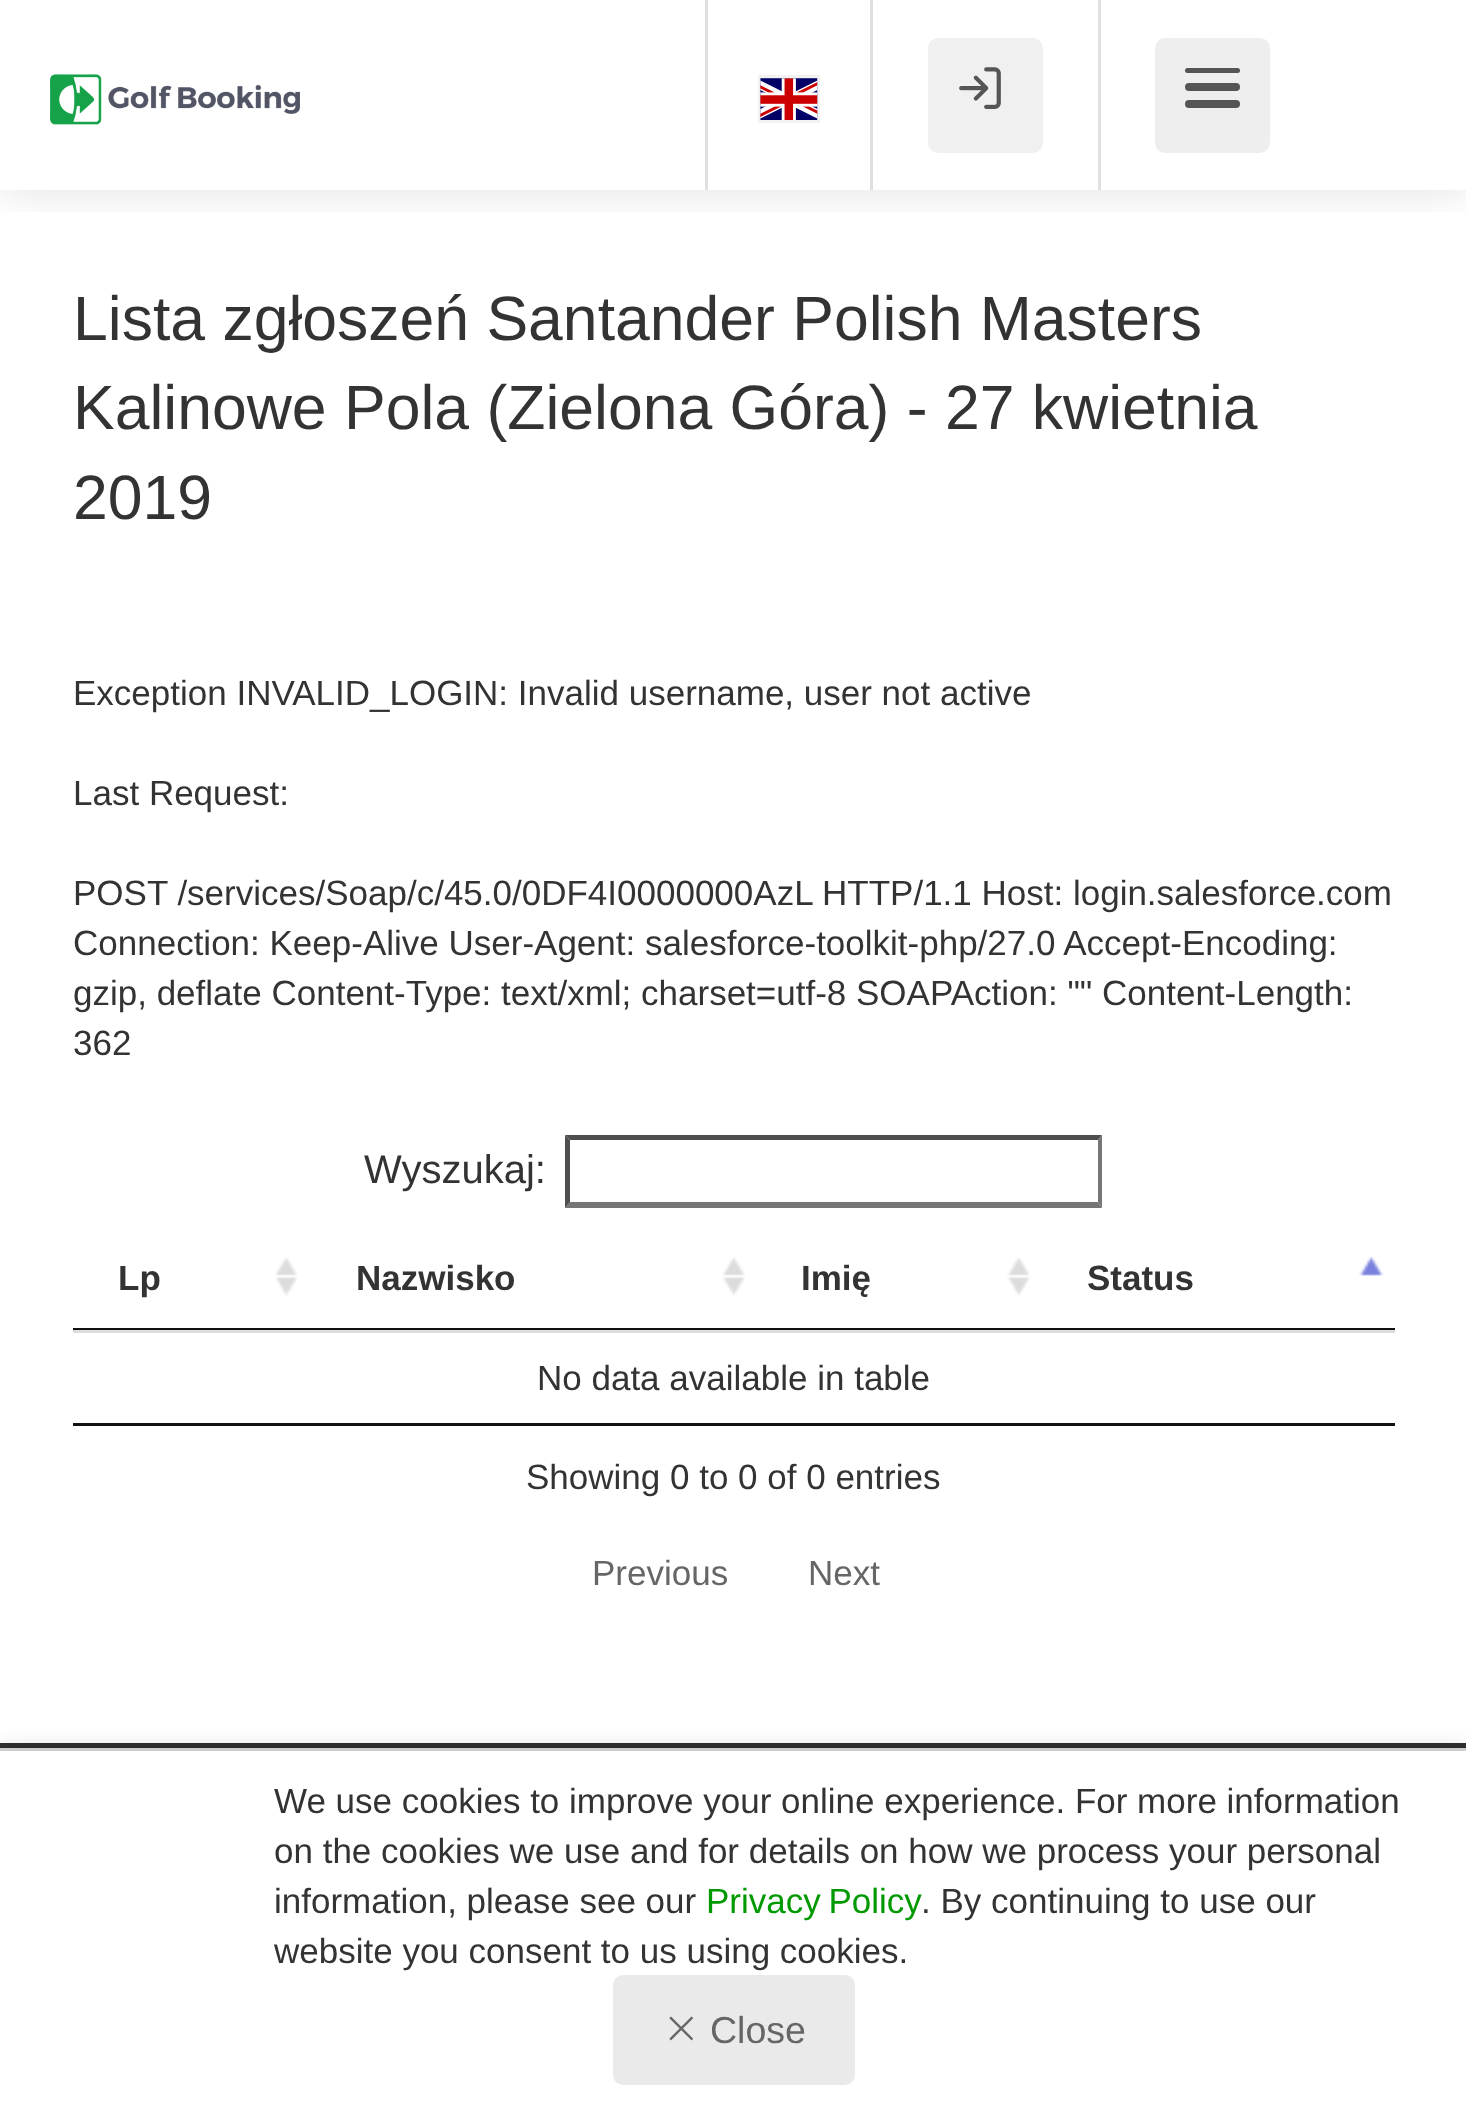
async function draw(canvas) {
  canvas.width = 1466;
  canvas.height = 2122;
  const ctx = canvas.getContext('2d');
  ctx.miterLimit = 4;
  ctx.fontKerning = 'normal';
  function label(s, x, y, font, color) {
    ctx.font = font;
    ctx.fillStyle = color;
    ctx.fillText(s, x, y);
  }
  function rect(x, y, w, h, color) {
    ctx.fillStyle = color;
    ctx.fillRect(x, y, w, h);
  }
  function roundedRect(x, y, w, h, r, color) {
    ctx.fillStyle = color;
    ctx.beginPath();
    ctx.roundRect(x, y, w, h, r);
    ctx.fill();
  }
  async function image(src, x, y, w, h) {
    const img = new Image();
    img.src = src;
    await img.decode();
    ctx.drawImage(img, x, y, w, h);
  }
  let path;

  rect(0, 0, 1466, 2122, '#fff');
  ctx.save();
  ctx.beginPath();
  ctx.rect(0, 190, 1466, 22);
  ctx.clip();
  ctx.fillStyle = '#0000001f';
  ctx.filter = 'blur(22.5px)';
  ctx.beginPath();
  ctx.rect(0, 0, 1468, 190);
  ctx.fill();
  ctx.filter = 'none';
  ctx.restore();
  await image('assets/img1.png', 50, 74, 250, 51);
  rect(870, 0, 3, 190, '#e0e0e0');
  rect(705, 0, 3, 190, '#e0e0e0');
  ctx.strokeStyle = '#f2f2f2';
  ctx.lineWidth = 3;
  ctx.strokeRect(759.5, 76.5, 59, 45);
  await image('assets/img2.png', 760, 78, 58, 42);
  rect(1098, 0, 3, 190, '#e0e0e0');
  roundedRect(928, 38, 115, 115, 10, '#f0f0f0');
  await image('assets/img3.png', 959, 67, 42, 42);
  roundedRect(1155, 38, 115, 115, 10, '#eee');
  roundedRect(1185, 100, 55, 8, 4, '#555');
  roundedRect(1185, 68, 55, 5, 2.5, '#555');
  roundedRect(1185, 83, 55, 8, 4, '#555');
  label('Lista zgłoszeń Santander Polish Masters', 73, 340, '62.5px Liberation Sans', '#333');
  label('Kalinowe Pola (Zielona Góra) - 27 kwietnia', 73, 429, '62.5px Liberation Sans', '#333');
  label('2019', 73, 519, '62.5px Liberation Sans', '#333');
  label('Exception INVALID_LOGIN: Invalid username, user not active', 73, 705, '35px Liberation Sans', '#333');
  label('Last Request:', 73, 805, '35px Liberation Sans', '#333');
  label('POST /services/Soap/c/45.0/0DF4I0000000AzL HTTP/1.1 Host: login.salesforce.com', 73, 905, '35px Liberation Sans', '#333');
  label('Connection: Keep-Alive User-Agent: salesforce-toolkit-php/27.0 Accept-Encoding:', 73, 955, '35px Liberation Sans', '#333');
  label('gzip, deflate Content-Type: text/xml; charset=utf-8 SOAPAction: "" Content-Length:', 73, 1005, '35px Liberation Sans', '#333');
  label('362', 73, 1055, '35px Liberation Sans', '#333');
  label('Wyszukaj:', 364, 1183, '40px Liberation Sans', '#333');
  ctx.fillStyle = '#4f4f4f';
  path = new Path2D('M565 1135H1102L1098 1140H570Z');
  ctx.fill(path);
  ctx.fillStyle = '#767676';
  path = new Path2D('M1102 1135V1208L1098 1202V1140Z');
  ctx.fill(path);
  path = new Path2D('M1102 1208H565L570 1202H1098Z');
  ctx.fill(path);
  ctx.fillStyle = '#4f4f4f';
  path = new Path2D('M565 1208V1135L570 1140V1202Z');
  ctx.fill(path);
  rect(73, 1423, 1322, 3, '#111');
  await image('assets/img4.png', 275, 1257, 23, 39);
  rect(73, 1328, 1322, 2, '#111');
  label('Lp', 118, 1290, 'bold 35px Liberation Sans', '#333');
  await image('assets/img5.png', 722, 1257, 23, 39);
  label('Nazwisko', 356, 1290, 'bold 35px Liberation Sans', '#333');
  await image('assets/img6.png', 1007, 1257, 23, 39);
  label('Imię', 801, 1290, 'bold 35px Liberation Sans', '#333');
  await image('assets/img7.png', 1359, 1257, 25, 19);
  label('Status', 1087, 1290, 'bold 35px Liberation Sans', '#333');
  rect(73, 1330, 1322, 3, '#ddd');
  label('No data available in table', 537, 1390, '35px Liberation Sans', '#333');
  label('Showing 0 to 0 of 0 entries', 526, 1489, '35px Liberation Sans', '#333');
  label('Previous', 592, 1585, '35px Liberation Sans', '#666');
  label('Next', 808, 1585, '35px Liberation Sans', '#666');
  rect(0, 1743, 1466, 5, '#303030');
  ctx.fillStyle = '#00000026';
  ctx.filter = 'blur(10px)';
  ctx.beginPath();
  ctx.rect(0, 1748, 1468, 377);
  ctx.fill();
  ctx.filter = 'none';
  rect(0, 1751, 1466, 371, '#fff');
  rect(0, 1748, 1466, 3, '#ccc');
  label('We use cookies to improve your online experience. For more information', 274, 1813, '35px Liberation Sans', '#333');
  label('on the cookies we use and for details on how we process your personal', 274, 1863, '35px Liberation Sans', '#333');
  label('information, please see our', 274, 1913, '35px Liberation Sans', '#333');
  ctx.wordSpacing = '-2px';
  label('Privacy Policy', 706, 1913, '35px Liberation Sans', '#090');
  ctx.wordSpacing = '0px';
  label('. By continuing to use our', 921, 1913, '35px Liberation Sans', '#333');
  label('website you consent to us using cookies.', 274, 1963, '35px Liberation Sans', '#333');
  roundedRect(613, 1975, 242, 110, 10, '#eaeaea');
  await image('assets/img8.png', 669, 2016, 25, 25);
  label('Close', 710, 2043, '37.5px Liberation Sans', '#666');
}

draw(document.querySelector('canvas'));
